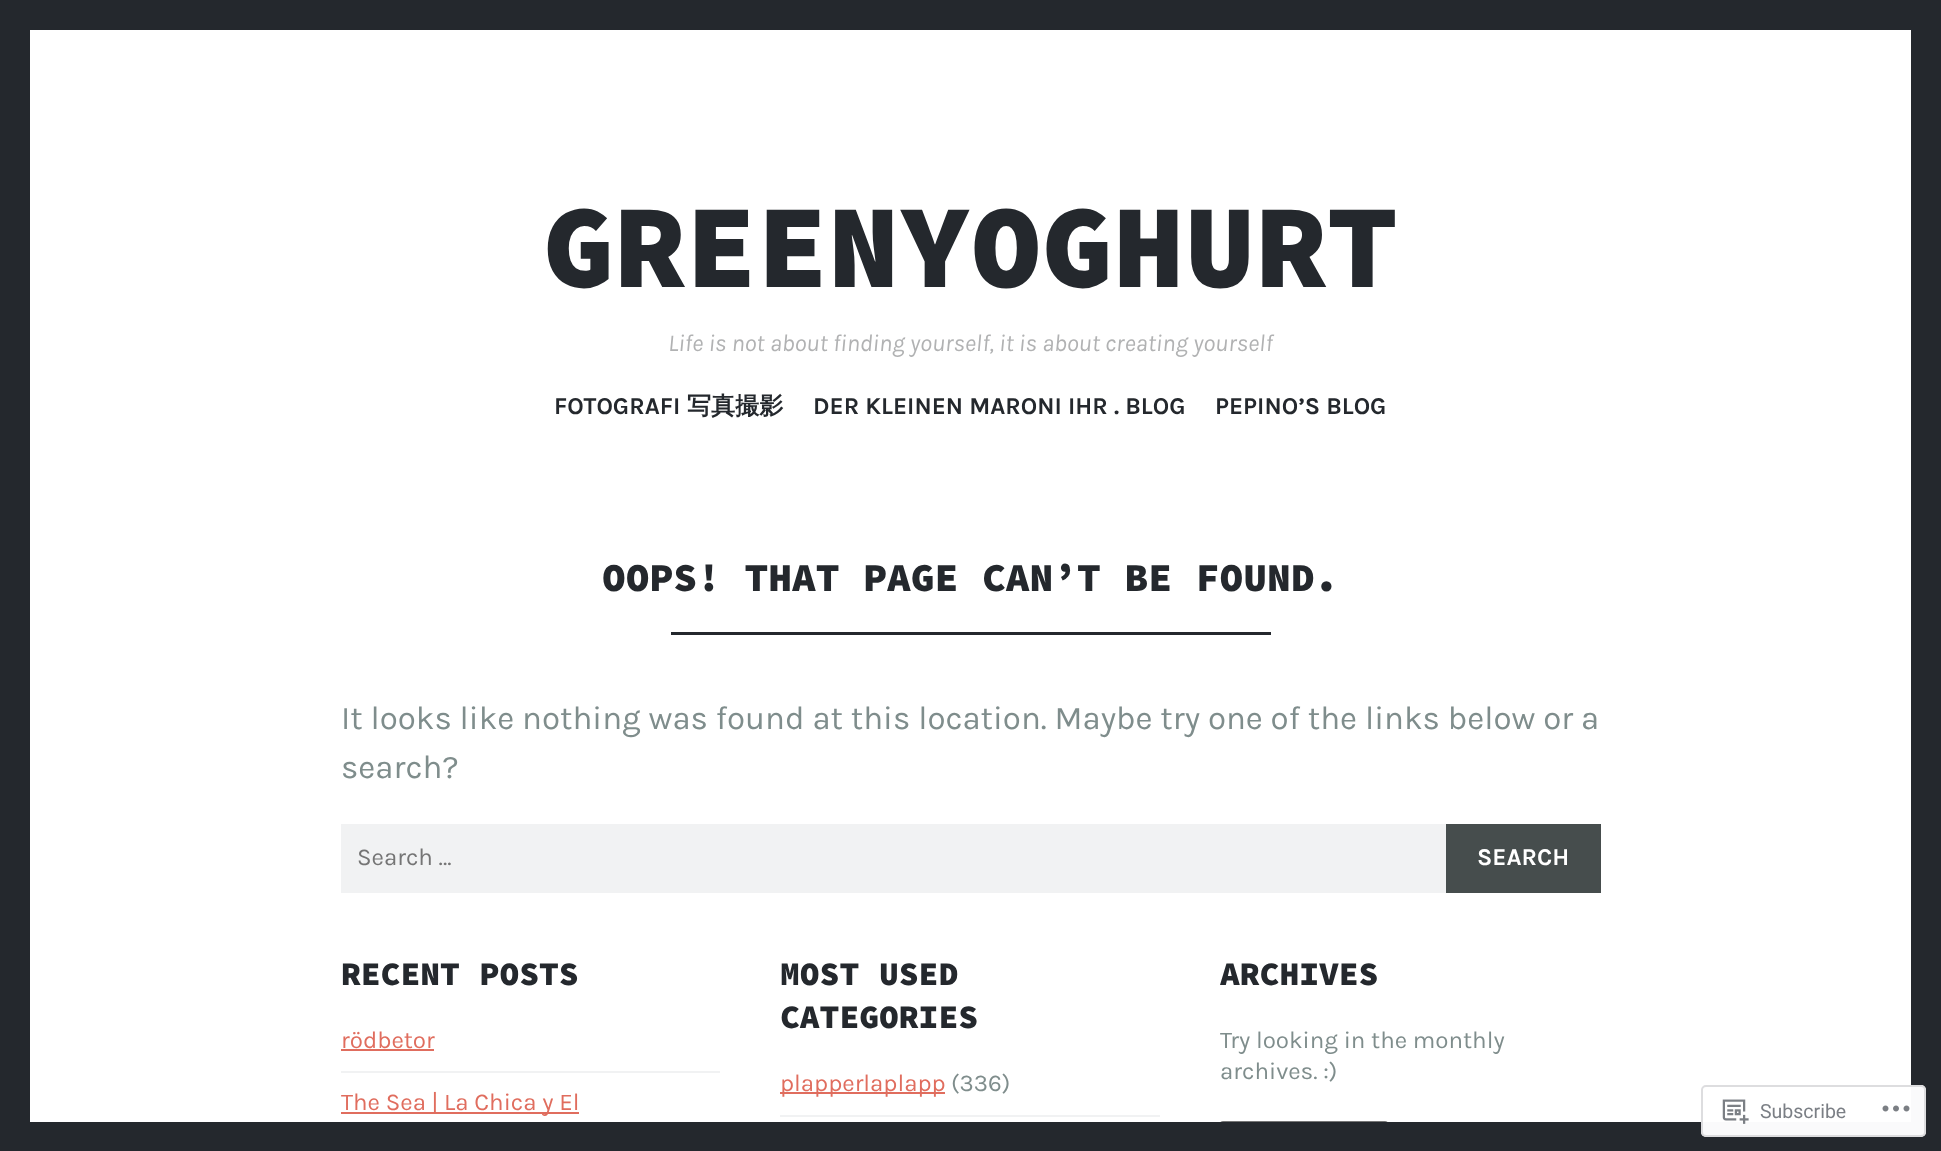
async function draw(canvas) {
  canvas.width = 1941;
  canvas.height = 1151;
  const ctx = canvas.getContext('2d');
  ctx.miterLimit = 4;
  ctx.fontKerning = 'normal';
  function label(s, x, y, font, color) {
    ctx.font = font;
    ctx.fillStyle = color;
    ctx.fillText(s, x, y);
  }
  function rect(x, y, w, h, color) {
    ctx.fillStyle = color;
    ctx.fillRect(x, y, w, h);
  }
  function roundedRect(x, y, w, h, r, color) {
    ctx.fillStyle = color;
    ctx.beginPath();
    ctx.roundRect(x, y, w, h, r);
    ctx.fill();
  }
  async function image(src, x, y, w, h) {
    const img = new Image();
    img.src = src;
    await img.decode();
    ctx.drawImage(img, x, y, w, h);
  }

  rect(0, 0, 1941, 1151, '#24282d');
  rect(30, 30, 1881, 1092, '#fff');
  label('GREENYOGHURT', 543, 287, '200 118.75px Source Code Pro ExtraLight', '#24282d');
  label('Life is not about finding yourself, it is about creating yourself', 668, 351, 'italic 24.1px Karla', '#b1b2b3');
  label('FOTOGRAFI', 554, 414, 'bold 24.1px Karla', '#24282d');
  label('写真撮影', 687, 414, 'bold 24.1px WenQuanYi Zen Hei', '#24282d');
  label('DER KLEINEN MARONI IHR . BLOG', 813, 414, 'bold 24.1px Karla', '#24282d');
  label('PEPINO’S BLOG', 1215, 414, 'bold 24.1px Karla', '#24282d');
  label('OOPS! THAT PAGE CAN’T BE FOUND.', 602, 591, '200 39.6px Source Code Pro ExtraLight', '#24282d');
  rect(671, 632, 600, 3, '#24282d');
  label('It looks like nothing was found at this location. Maybe try one of the links below or a', 341, 729, '33px Karla', '#7f8d8c');
  label('search?', 341, 778, '33px Karla', '#7f8d8c');
  rect(341, 824, 1105, 69, '#f1f2f3');
  label('Search …', 357, 865, '24.1px Karla', '#757575');
  rect(1446, 824, 155, 69, '#464d4d');
  label('SEARCH', 1477, 865, 'bold 24.1px Karla', '#fff');
  label('RECENT POSTS', 341, 985, '200 33px Source Code Pro ExtraLight', '#24282d');
  rect(341, 1071, 379, 2, '#f1f2f3');
  label('rödbetor', 341, 1048, '24.1px Karla', '#e06d5e');
  rect(341, 1049, 93, 2, '#e06d5e');
  rect(341, 1112, 238, 2, '#e06d5e');
  label('The Sea | La Chica y El', 341, 1110, '24.1px Karla', '#e06d5e');
  label('MOST USED', 780, 985, '200 33px Source Code Pro ExtraLight', '#24282d');
  label('CATEGORIES', 780, 1028, '200 33px Source Code Pro ExtraLight', '#24282d');
  rect(780, 1115, 380, 2, '#f1f2f3');
  rect(780, 1092, 165, 2, '#e06d5e');
  label('plapperlaplapp', 780, 1091, '24.1px Karla', '#e06d5e');
  label('(336)', 951, 1091, '24.1px Karla', '#7f8d8c');
  label('ARCHIVES', 1220, 985, '200 33px Source Code Pro ExtraLight', '#24282d');
  label('Try looking in the monthly', 1220, 1048, '24.1px Karla', '#7f8d8c');
  label('archives. :)', 1220, 1079, '24.1px Karla', '#7f8d8c');
  ctx.beginPath();
  ctx.roundRect(1221, 1122, 166, 25, 2);
  ctx.strokeStyle = '#767676';
  ctx.lineWidth = 2;
  ctx.stroke();
  roundedRect(1701, 1085, 225, 52, 5, '#fffffffa');
  ctx.beginPath();
  ctx.roundRect(1702, 1086, 223, 50, 4);
  ctx.strokeStyle = '#dcdcdefa';
  ctx.stroke();
  await image('assets/img1.png', 1722, 1099, 27, 25);
  label('Subscribe', 1760, 1118, '19.5px Roboto', '#7b7f85');
  await image('assets/img2.png', 1882, 1105, 28, 7);
  rect(1220, 1122, 168, 26, '#24282d');
}

draw(document.querySelector('canvas'));
